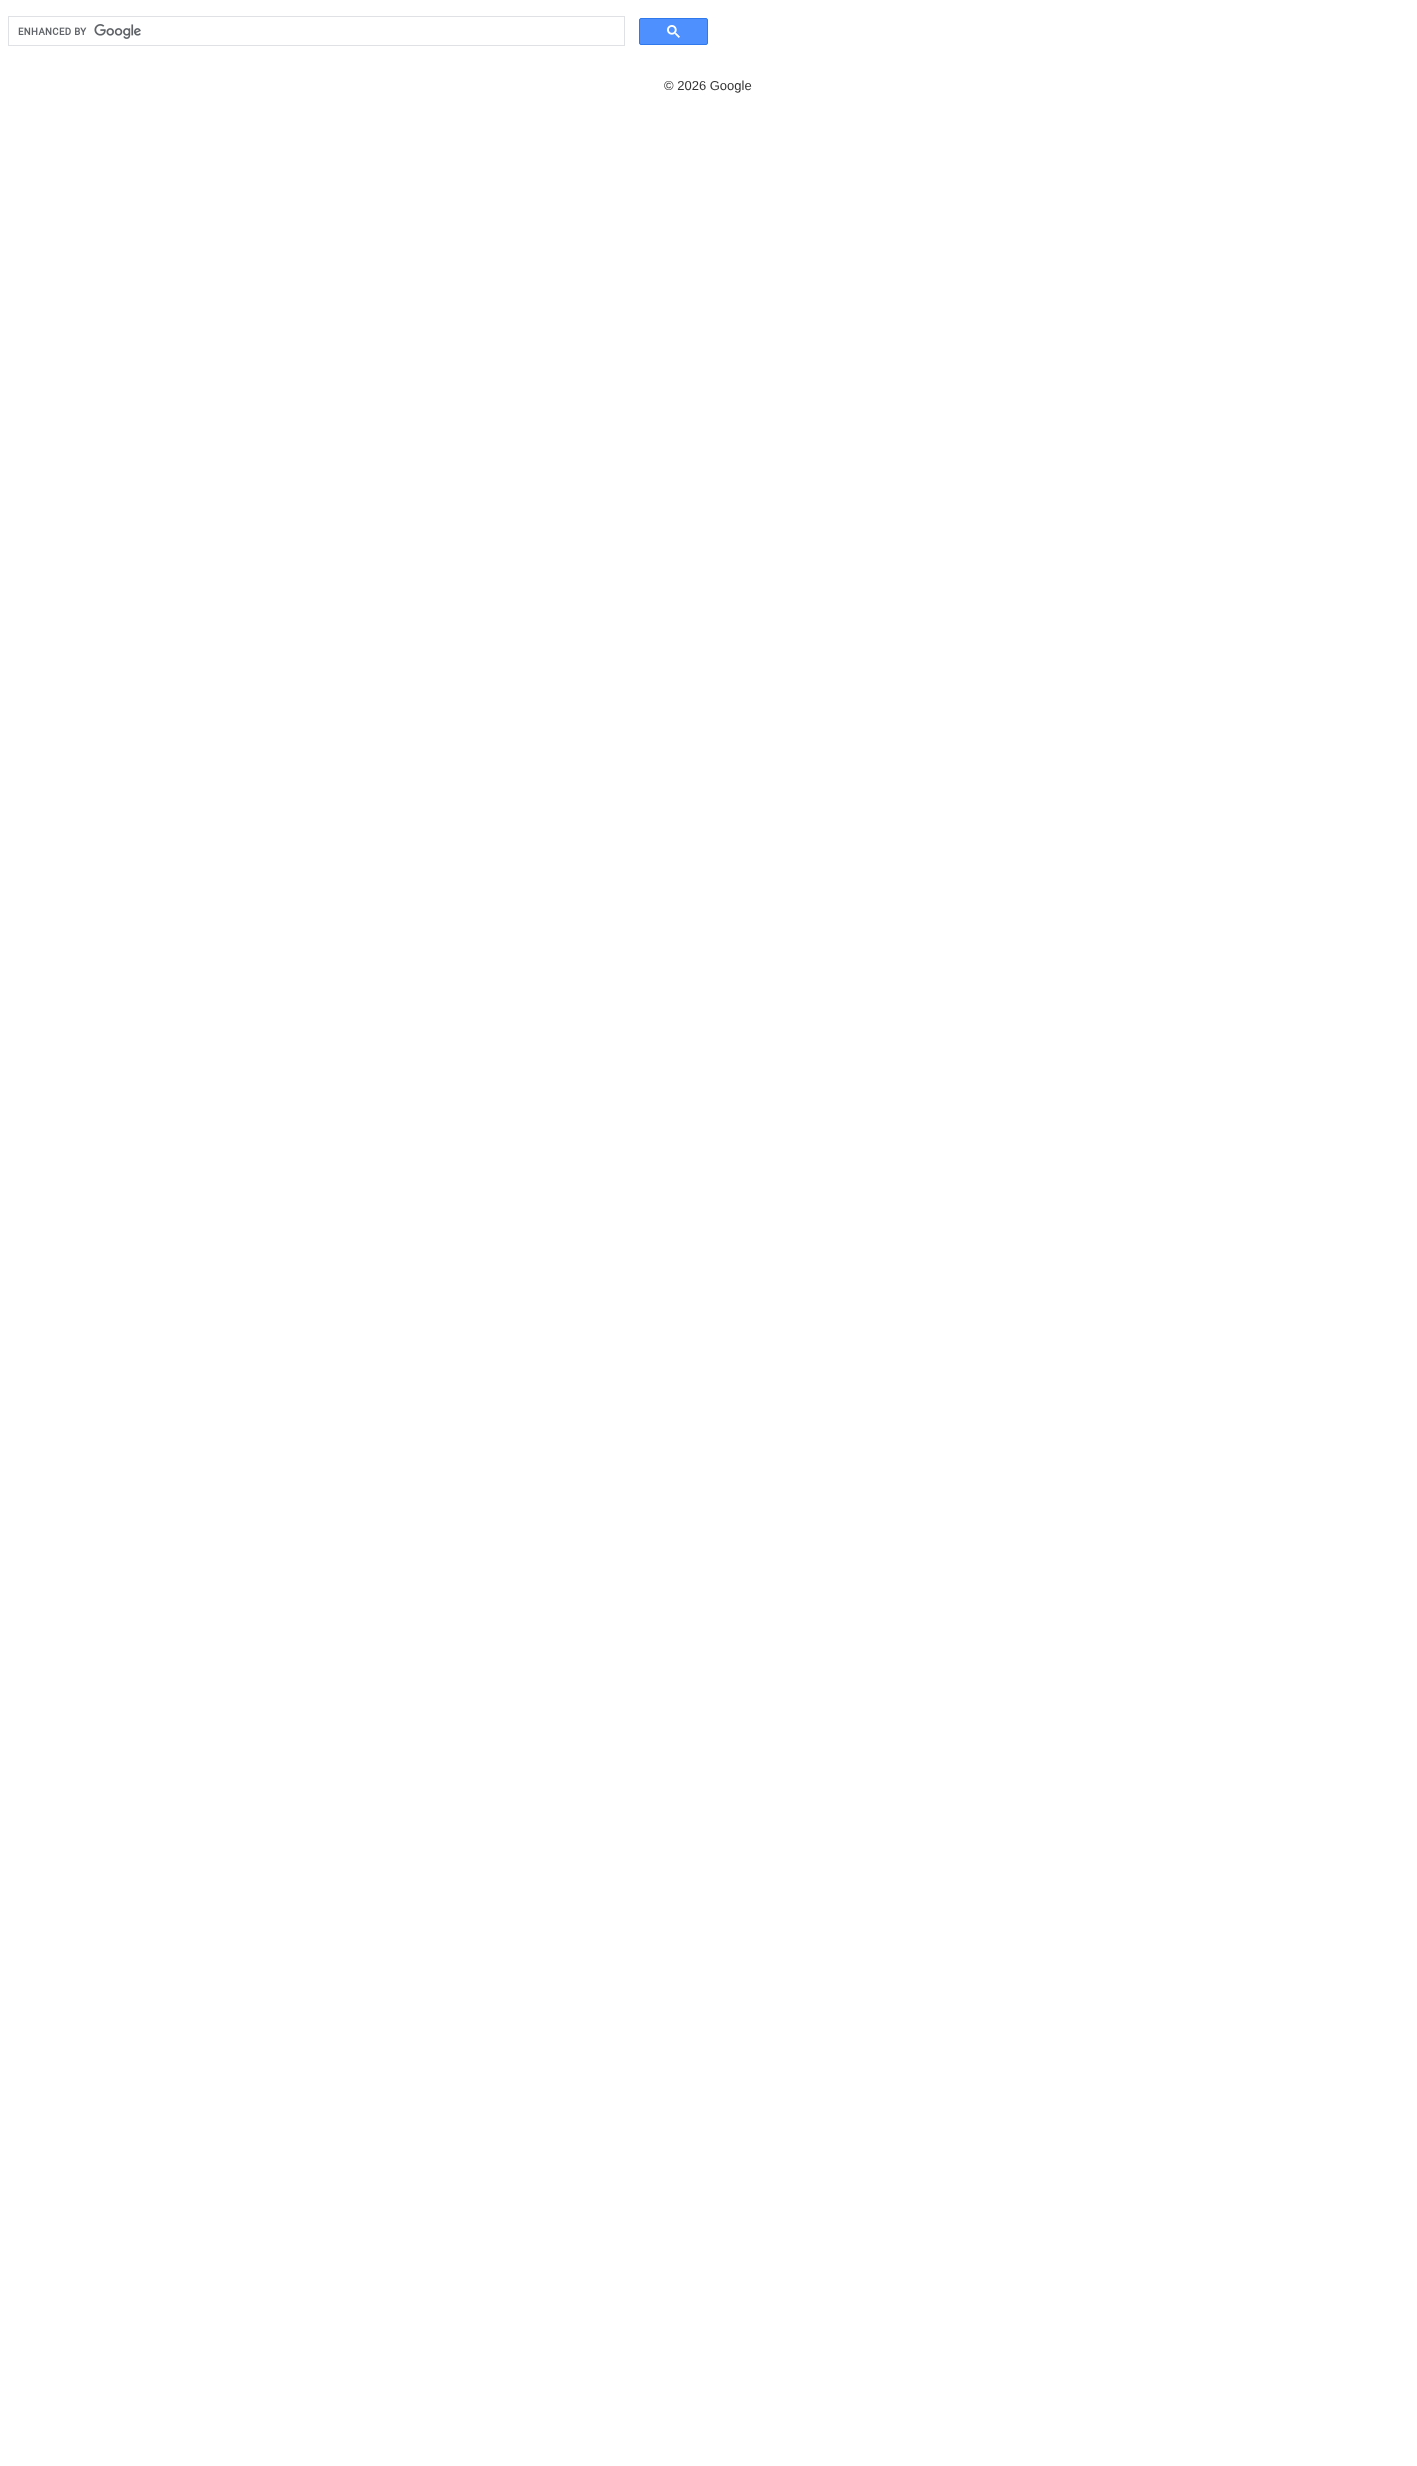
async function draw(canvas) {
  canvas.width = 1417;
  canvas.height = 2466;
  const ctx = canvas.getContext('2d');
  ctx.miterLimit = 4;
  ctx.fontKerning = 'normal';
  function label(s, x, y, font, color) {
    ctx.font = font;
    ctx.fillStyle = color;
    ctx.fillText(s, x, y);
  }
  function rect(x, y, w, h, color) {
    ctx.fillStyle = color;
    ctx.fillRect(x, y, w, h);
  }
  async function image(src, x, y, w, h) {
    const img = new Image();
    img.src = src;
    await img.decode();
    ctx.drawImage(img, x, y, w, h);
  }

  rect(0, 0, 1417, 2466, '#fff');
  ctx.strokeStyle = '#dfe1e5';
  ctx.strokeRect(8.5, 16.5, 616, 29);
  await image('assets/img1.png', 18, 24, 123, 15);
  ctx.fillStyle = '#4d90fe';
  ctx.beginPath();
  ctx.roundRect(639.5, 18.5, 68, 26, 1.5);
  ctx.fill();
  ctx.strokeStyle = '#3079ed';
  ctx.stroke();
  await image('assets/img2.png', 667, 25, 13, 13);
  label('© 2026 Google', 664, 90, '13px Liberation Sans', '#333');
}

draw(document.querySelector('canvas'));
